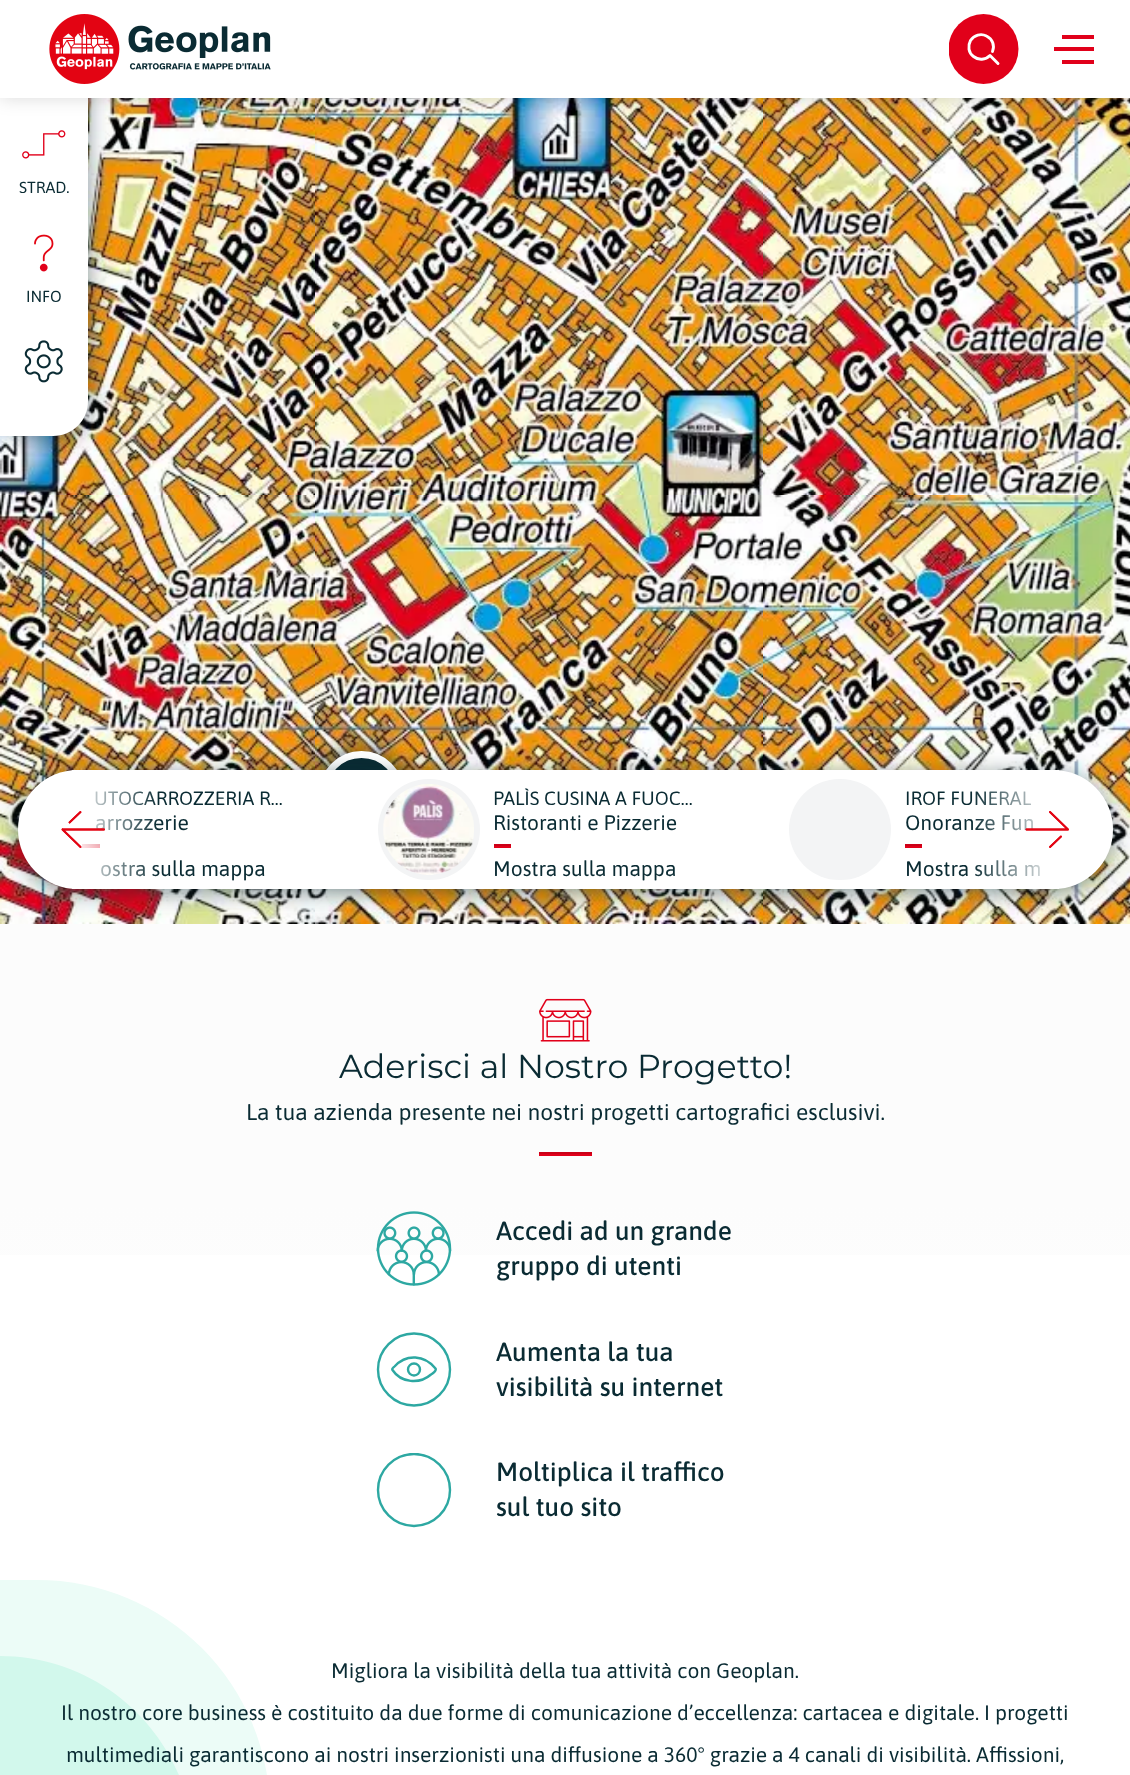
async function draw(canvas) {
  canvas.width = 1130;
  canvas.height = 1775;
  const ctx = canvas.getContext('2d');
  ctx.miterLimit = 4;
  ctx.fontKerning = 'normal';
  function label(s, x, y, font, color) {
    ctx.font = font;
    ctx.fillStyle = color;
    ctx.fillText(s, x, y);
  }
  function rect(x, y, w, h, color) {
    ctx.fillStyle = color;
    ctx.fillRect(x, y, w, h);
  }
  function roundedRect(x, y, w, h, r, color) {
    ctx.fillStyle = color;
    ctx.beginPath();
    ctx.roundRect(x, y, w, h, r);
    ctx.fill();
  }
  async function image(src, x, y, w, h) {
    const img = new Image();
    img.src = src;
    await img.decode();
    ctx.drawImage(img, x, y, w, h);
  }
  let gradient, path;

  rect(0, 0, 1130, 1775, '#fff');
  await image('assets/img2.png', 0, 98, 315, 397);
  await image('assets/img3.png', 315, 98, 448, 397);
  await image('assets/img4.png', 763, 98, 367, 397);
  ctx.fillStyle = '#0a2b3380';
  ctx.filter = 'blur(10.5px)';
  ctx.beginPath();
  ctx.roundRect(0, -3, 88, 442, 35);
  ctx.fill();
  ctx.filter = 'none';
  ctx.fillStyle = '#fff';
  path = new Path2D('M0-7H53C72.5-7 88 8.5 88 28V401C88 420.5 72.5 436 53 436H0Z');
  ctx.fill(path);
  ctx.fillStyle = '#00000026';
  ctx.filter = 'blur(9px)';
  ctx.beginPath();
  ctx.rect(0, 0, 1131, 98);
  ctx.fill();
  ctx.filter = 'none';
  rect(0, 0, 1130, 98, '#fff');
  await image('assets/img1.png', 49, 14, 222, 70);
  ctx.save();
  ctx.beginPath();
  ctx.rect(949, 14, 70, 70);
  ctx.clip();
  ctx.fillStyle = '#e1001a';
  ctx.beginPath();
  ctx.arc(983.5, 49, 35, 0, 2 * Math.PI);
  ctx.fill();
  ctx.restore();
  path = new Path2D('M992.5 51.5C995 45.5 992.5 39 986.5 36C981 33 974 35 970.5 40.5C967.5 46 968.5 53 973.5 56.5C978.5 60.5 985.5 60 990 55.5M990 55.5L998 63.5');
  ctx.strokeStyle = '#fff';
  ctx.lineWidth = 2.9;
  ctx.lineCap = 'round';
  ctx.lineJoin = 'round';
  ctx.stroke(path);
  rect(1062, 35, 32, 4, '#e1001a');
  rect(1054, 47, 40, 4, '#e1001a');
  rect(1062, 60, 32, 4, '#e1001a');
  await image('assets/img5.png', 0, 495, 315, 429);
  await image('assets/img6.png', 315, 495, 448, 429);
  await image('assets/img7.png', 763, 495, 367, 429);
  ctx.fillStyle = '#0a2b33bf';
  ctx.filter = 'blur(13px)';
  ctx.beginPath();
  ctx.roundRect(319, 751, 85, 86, 42.5);
  ctx.fill();
  ctx.filter = 'none';
  await image('assets/img8.png', 335, 758, 53, 12);
  ctx.beginPath();
  ctx.roundRect(322.5, 754.5, 78, 79, 39);
  ctx.lineWidth = 7;
  ctx.lineJoin = 'miter';
  ctx.stroke();
  ctx.filter = 'blur(13px)';
  ctx.beginPath();
  ctx.roundRect(306, 788, 86, 85, 42.5);
  ctx.fill();
  ctx.filter = 'none';
  ctx.filter = 'blur(13px)';
  ctx.beginPath();
  ctx.roundRect(394, 786, 86, 86, 43);
  ctx.fill();
  ctx.filter = 'none';
  ctx.filter = 'blur(13px)';
  ctx.beginPath();
  ctx.roundRect(289, 935, 86, 85, 42.5);
  ctx.fill();
  ctx.filter = 'none';
  await image('assets/img9.png', 22, 130, 44, 29);
  label('STRAD.', 19, 193, '16px Asap', '#0a2b33');
  await image('assets/img10.png', 34, 234, 20, 38);
  label('INFO', 26, 302, '16px Asap', '#0a2b33');
  await image('assets/img11.png', 24, 340, 39, 43);
  ctx.fillStyle = '#0a2b3380';
  ctx.filter = 'blur(10.5px)';
  ctx.beginPath();
  ctx.roundRect(18, 774, 1095, 119, 59.5);
  ctx.fill();
  ctx.filter = 'none';
  roundedRect(18, 770, 1095, 119, 59.5, '#fff');
  ctx.save();
  ctx.beginPath();
  ctx.rect(72, 770, 987, 119);
  ctx.clip();
  roundedRect(18, 770, 334, 119, 59.5, '#fff');
  ctx.restore();
  label('UTOCARROZZERIA R…', 94, 805, '19.25px Asap', '#0a2b33');
  label('arrozzerie', 95, 830, '21px Asap', '#0a2b33');
  rect(82, 846, 18, 2, '#e1001a');
  rect(82, 844, 18, 2, '#cb0017');
  label('ostra sulla mappa', 100, 876, '21px Asap', '#0a2b33');
  ctx.save();
  ctx.beginPath();
  ctx.roundRect(18, 770, 1095, 119, 59.5);
  ctx.clip();
  gradient = ctx.createLinearGradient(72, 830, 159, 830);
  gradient.addColorStop(0, '#fff');
  gradient.addColorStop(1, '#ffffff00');
  ctx.fillStyle = gradient;
  ctx.fillRect(72, 770, 85, 119);
  ctx.restore();
  path = new Path2D('M80.5 812L69.5 822.5M62.5 829.5H104M62.5 829.5L80.5 847');
  ctx.strokeStyle = '#e30413';
  ctx.lineWidth = 1.8;
  ctx.lineJoin = 'round';
  ctx.stroke(path);
  path = new Path2D('M80.5 812L69.5 822.5M62.5 829.5H104M62.5 829.5L80.5 847');
  ctx.stroke(path);
  ctx.save();
  ctx.beginPath();
  ctx.roundRect(18, 770, 1095, 119, 59.5);
  ctx.clip();
  ctx.fillStyle = '#fff';
  ctx.beginPath();
  ctx.roundRect(781, 770, 278, 119, [59.5, 0, 0, 59.5]);
  ctx.fill();
  ctx.restore();
  label('IROF FUNERAL', 905, 805, '19.25px Asap', '#0a2b33');
  label('Onoranze Fun', 905, 830, '21px Asap', '#0a2b33');
  label('Mostra sulla m', 905, 876, '21px Asap', '#0a2b33');
  ctx.save();
  ctx.beginPath();
  ctx.roundRect(18, 770, 1095, 119, 59.5);
  ctx.clip();
  gradient = ctx.createLinearGradient(1059, 830, 971, 830);
  gradient.addColorStop(0, '#fff');
  gradient.addColorStop(1, '#ffffff00');
  ctx.fillStyle = gradient;
  ctx.fillRect(973, 770, 86, 119);
  ctx.restore();
  roundedRect(378, 779, 102, 101, 50.5, '#f3f4f5');
  await image('assets/img12.png', 383, 784, 91, 91);
  label('PALÌS CUSINA A FUOC…', 493, 805, '19.25px Asap', '#0a2b33');
  label('Ristoranti e Pizzerie', 493, 830, '21px Asap', '#0a2b33');
  rect(494, 846, 17, 2, '#e1001a');
  rect(494, 844, 17, 2, '#cb0017');
  label('Mostra sulla mappa', 493, 876, '21px Asap', '#0a2b33');
  roundedRect(789, 779, 102, 101, 50.5, '#f3f4f5');
  rect(905, 846, 17, 2, '#e1001a');
  rect(905, 844, 17, 2, '#cb0017');
  path = new Path2D('M1050 847L1061 836.5M1068 829.5H1026.5M1068 829.5L1050 812');
  ctx.stroke(path);
  path = new Path2D('M1050 847L1061 836.5M1068 829.5H1026.5M1068 829.5L1050 812');
  ctx.stroke(path);
  gradient = ctx.createLinearGradient(565, 924, 565, 1491);
  gradient.addColorStop(0, '#fcfcfc');
  gradient.addColorStop(0.5, '#fcfcfc');
  gradient.addColorStop(1, '#fff');
  ctx.fillStyle = gradient;
  ctx.fillRect(0, 924, 1130, 331);
  roundedRect(-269, 1580, 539, 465, 269.5, '#ecfcf7');
  ctx.fillStyle = '#d2f8ec';
  path = new Path2D('M0 1656C107 1656 194 1743 194 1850V1775C194 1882 107 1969 0 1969Z');
  ctx.fill(path);
  await image('assets/img13.png', 539, 998, 53, 44);
  label('Aderisci al Nostro Progetto!', 339, 1078, '33.25px Montserrat', '#0a2b33');
  label('La tua azienda presente nei nostri progetti cartografici esclusivi.', 246, 1120, '22.75px Asap', '#0a2b33');
  rect(539, 1154, 53, 2, '#e1001a');
  rect(539, 1152, 53, 2, '#cb0017');
  await image('assets/img14.png', 376, 1211, 76, 75);
  label('Accedi ad un grande', 496, 1240, '500 26.25px Asap', '#0a2b33');
  label('gruppo di utenti', 496, 1275, '500 26.25px Asap', '#0a2b33');
  ctx.beginPath();
  ctx.arc(414, 1369.5, 36, 0, 2 * Math.PI);
  ctx.strokeStyle = '#2da8a2';
  ctx.lineWidth = 2.4;
  ctx.stroke();
  ctx.beginPath();
  ctx.arc(414, 1369.5, 6, 0, 2 * Math.PI);
  ctx.stroke();
  path = new Path2D('M435.5 1368.5C437 1370.5 432 1374 431 1374.5C419.5 1384.5 401 1383 392.5 1370C391.5 1368.5 393.5 1367.5 394.5 1366.5C406.5 1353.5 424.5 1355 435.5 1368.5Z');
  ctx.lineJoin = 'miter';
  ctx.stroke(path);
  label('Aumenta la tua', 496, 1361, '500 26.25px Asap', '#0a2b33');
  label('visibilità su internet', 496, 1396, '500 26.25px Asap', '#0a2b33');
  ctx.save();
  ctx.beginPath();
  ctx.rect(376, 1453, 76, 75);
  ctx.clip();
  ctx.beginPath();
  ctx.arc(414, 1490, 36, 0, 2 * Math.PI);
  ctx.stroke();
  ctx.restore();
  label('Moltiplica il traffico', 496, 1481, '500 26.25px Asap', '#0a2b33');
  label('sul tuo sito', 496, 1516, '500 26.25px Asap', '#0a2b33');
  label('Migliora la visibilità della tua attività con Geoplan.', 331, 1678, '21px Asap', '#0a2b33');
  label('Il nostro core business è costituito da due forme di comunicazione d’eccellenza: cartacea e digitale. I progetti', 61, 1720, '21px Asap', '#0a2b33');
  label('multimediali garantiscono ai nostri inserzionisti una diffusione a 360° grazie a 4 canali di visibilità. Affissioni,', 66, 1762, '21px Asap', '#0a2b33');
}

draw(document.querySelector('canvas'));
